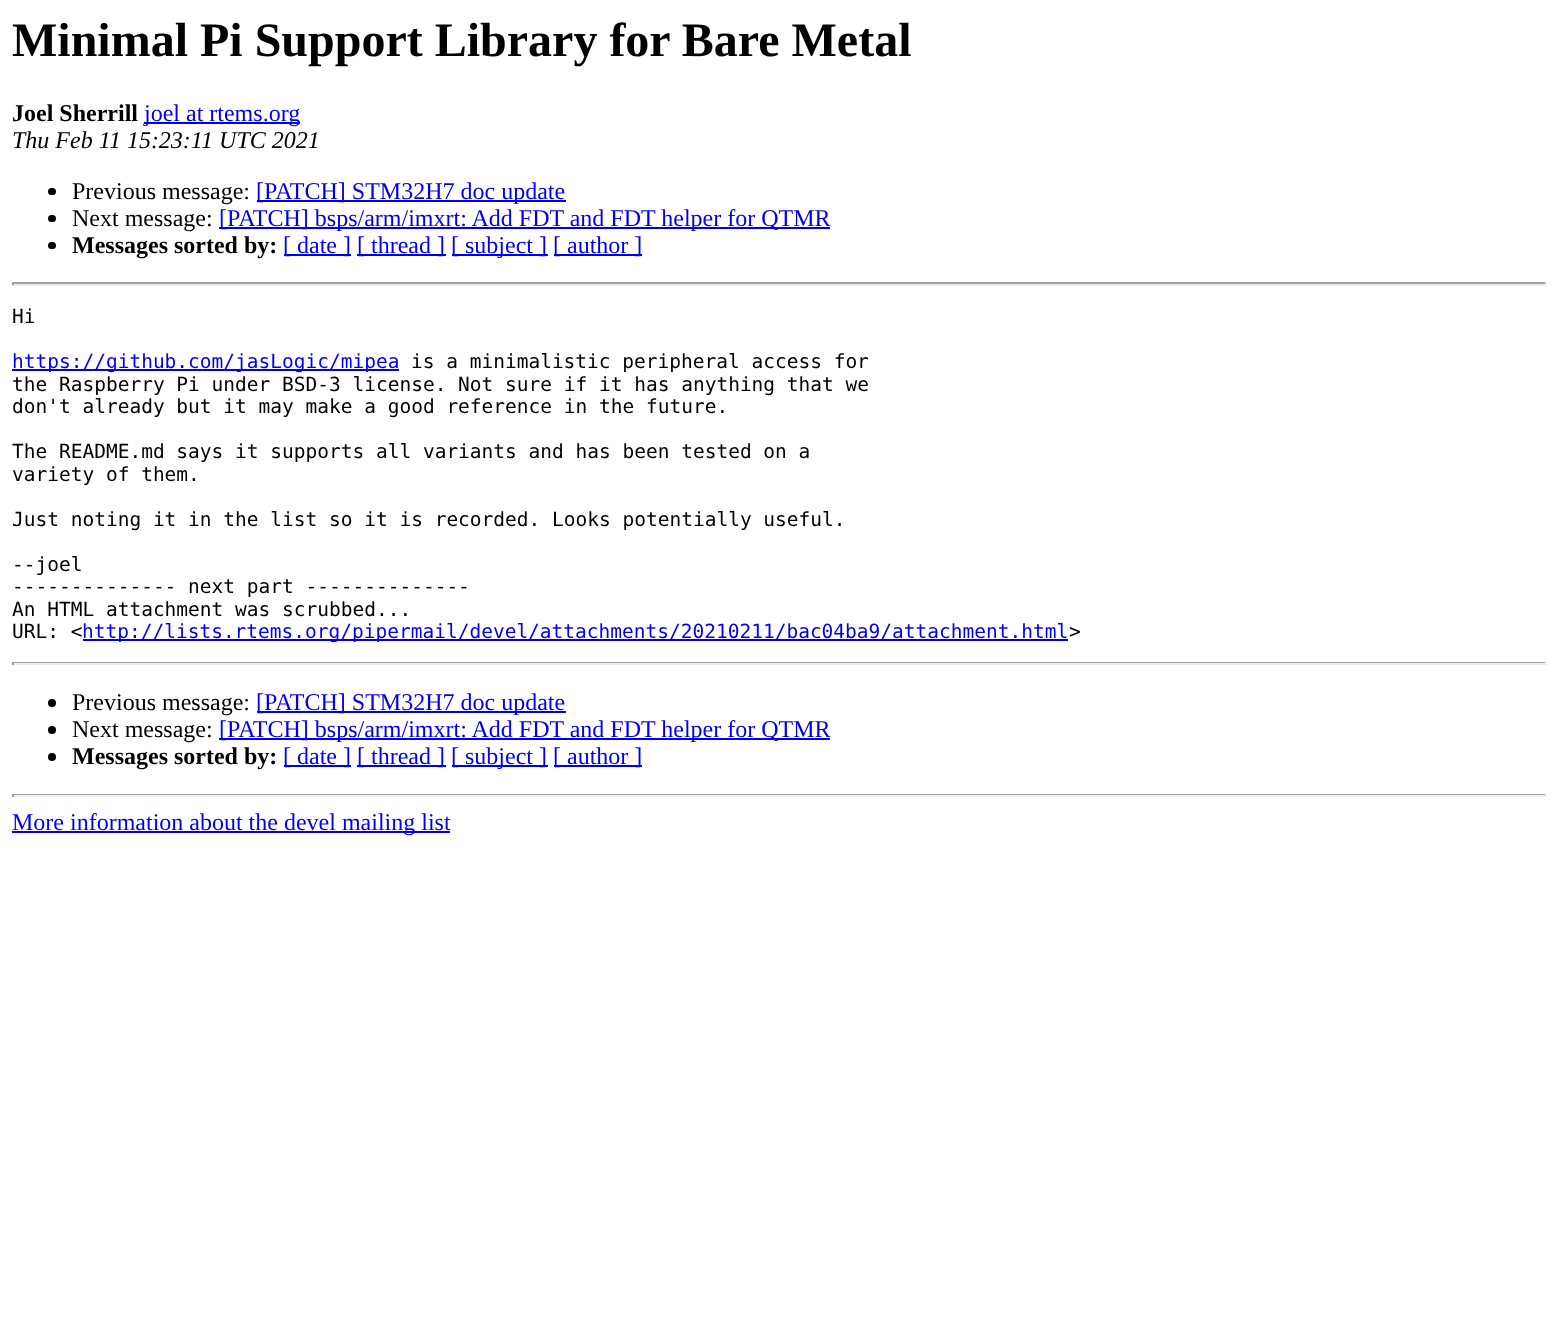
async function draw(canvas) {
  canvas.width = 1558;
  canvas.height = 1342;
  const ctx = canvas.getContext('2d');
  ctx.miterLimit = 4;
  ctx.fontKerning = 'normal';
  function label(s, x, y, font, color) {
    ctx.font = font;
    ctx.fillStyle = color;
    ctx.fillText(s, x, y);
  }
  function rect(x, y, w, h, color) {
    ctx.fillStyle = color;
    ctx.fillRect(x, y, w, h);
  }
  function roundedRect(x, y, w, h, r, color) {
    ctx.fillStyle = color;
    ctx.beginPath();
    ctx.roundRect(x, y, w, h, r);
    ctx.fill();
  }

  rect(0, 0, 1558, 1342, '#fff');
  label('Minimal Pi Support Library for Bare Metal', 12, 56, 'bold 48px Liberation Serif', '#000');
  label('Joel Sherrill', 12, 121, 'bold 24px Liberation Serif', '#000');
  rect(144, 122, 156, 2, '#00e');
  label('joel at rtems.org', 144, 121, '24px Liberation Serif', '#00e');
  label('Thu Feb 11 15:23:11 UTC 2021', 12, 148, 'italic 24px Liberation Serif', '#000');
  roundedRect(48, 188, 8, 7, 3.5, '#000');
  label('Previous message:', 72, 199, '24px Liberation Serif', '#000');
  rect(257, 200, 309, 2, '#00e');
  label('[PATCH] STM32H7 doc update', 256, 199, '24px Liberation Serif', '#00e');
  roundedRect(48, 215, 8, 7, 3.5, '#000');
  label('Next message:', 72, 226, '24px Liberation Serif', '#000');
  rect(219, 227, 611, 2, '#00e');
  label('[PATCH] bsps/arm/imxrt: Add FDT and FDT helper for QTMR', 219, 226, '24px Liberation Serif', '#00e');
  roundedRect(48, 242, 8, 7, 3.5, '#000');
  label('Messages sorted by:', 72, 253, 'bold 24px Liberation Serif', '#000');
  rect(284, 254, 67, 2, '#00e');
  label('[ date ]', 283, 253, '24px Liberation Serif', '#00e');
  rect(357, 254, 89, 2, '#00e');
  label('[ thread ]', 357, 253, '24px Liberation Serif', '#00e');
  rect(452, 254, 96, 2, '#00e');
  label('[ subject ]', 451, 253, '24px Liberation Serif', '#00e');
  rect(554, 254, 88, 2, '#00e');
  label('[ author ]', 553, 253, '24px Liberation Serif', '#00e');
  rect(12, 282, 1535, 2, '#9f9f9f');
  rect(1545, 282, 2, 3, '#eee');
  rect(12, 284, 1535, 2, '#eee');
  rect(12, 282, 2, 3, '#9f9f9f');
  label('Hi', 12, 323, '19.5px DejaVu Sans Mono', '#000');
  rect(12, 369, 387, 2, '#00e');
  label('https://github.com/jasLogic/mipea', 12, 368, '19.5px DejaVu Sans Mono', '#00e');
  label('is a minimalistic peripheral access for', 411, 368, '19.5px DejaVu Sans Mono', '#000');
  label('the Raspberry Pi under BSD-3 license. Not sure if it has anything that we', 12, 391, '19.5px DejaVu Sans Mono', '#000');
  label('don\'t already but it may make a good reference in the future.', 12, 413, '19.5px DejaVu Sans Mono', '#000');
  label('The README.md says it supports all variants and has been tested on a', 12, 458, '19.5px DejaVu Sans Mono', '#000');
  label('variety of them.', 12, 481, '19.5px DejaVu Sans Mono', '#000');
  label('Just noting it in the list so it is recorded. Looks potentially useful.', 12, 526, '19.5px DejaVu Sans Mono', '#000');
  label('--joel', 12, 571, '19.5px DejaVu Sans Mono', '#000');
  label('-------------- next part --------------', 12, 593, '19.5px DejaVu Sans Mono', '#000');
  label('An HTML attachment was scrubbed...', 12, 616, '19.5px DejaVu Sans Mono', '#000');
  label('URL: <', 12, 638, '19.5px DejaVu Sans Mono', '#000');
  rect(83, 639, 985, 2, '#00e');
  label('http://lists.rtems.org/pipermail/devel/attachments/20210211/bac04ba9/attachment.html', 82, 638, '19.5px DejaVu Sans Mono', '#00e');
  label('>', 1069, 638, '19.5px DejaVu Sans Mono', '#000');
  rect(12, 662, 1535, 1, '#9f9f9f');
  rect(1545, 662, 2, 3, '#eee');
  rect(12, 663, 1535, 2, '#eee');
  rect(12, 662, 2, 3, '#9f9f9f');
  ctx.fillStyle = '#000';
  ctx.beginPath();
  ctx.arc(52, 703, 4, 0, 2 * Math.PI);
  ctx.fill();
  label('Previous message:', 72, 710, '24px Liberation Serif', '#000');
  rect(257, 711, 309, 2, '#00e');
  label('[PATCH] STM32H7 doc update', 256, 710, '24px Liberation Serif', '#00e');
  ctx.fillStyle = '#000';
  ctx.beginPath();
  ctx.arc(52, 730, 4, 0, 2 * Math.PI);
  ctx.fill();
  label('Next message:', 72, 737, '24px Liberation Serif', '#000');
  rect(219, 738, 611, 2, '#00e');
  label('[PATCH] bsps/arm/imxrt: Add FDT and FDT helper for QTMR', 219, 737, '24px Liberation Serif', '#00e');
  ctx.fillStyle = '#000';
  ctx.beginPath();
  ctx.arc(52, 757, 4, 0, 2 * Math.PI);
  ctx.fill();
  label('Messages sorted by:', 72, 764, 'bold 24px Liberation Serif', '#000');
  rect(284, 765, 67, 2, '#00e');
  label('[ date ]', 283, 764, '24px Liberation Serif', '#00e');
  rect(357, 765, 89, 2, '#00e');
  label('[ thread ]', 357, 764, '24px Liberation Serif', '#00e');
  rect(452, 765, 96, 2, '#00e');
  label('[ subject ]', 451, 764, '24px Liberation Serif', '#00e');
  rect(554, 765, 88, 2, '#00e');
  label('[ author ]', 553, 764, '24px Liberation Serif', '#00e');
  rect(12, 794, 1535, 1, '#9f9f9f');
  rect(1545, 794, 2, 3, '#eee');
  rect(12, 795, 1535, 2, '#eee');
  rect(12, 794, 2, 3, '#9f9f9f');
  rect(12, 831, 438, 2, '#00e');
  label('More information about the devel mailing list', 12, 830, '24px Liberation Serif', '#00e');
}

draw(document.querySelector('canvas'));
